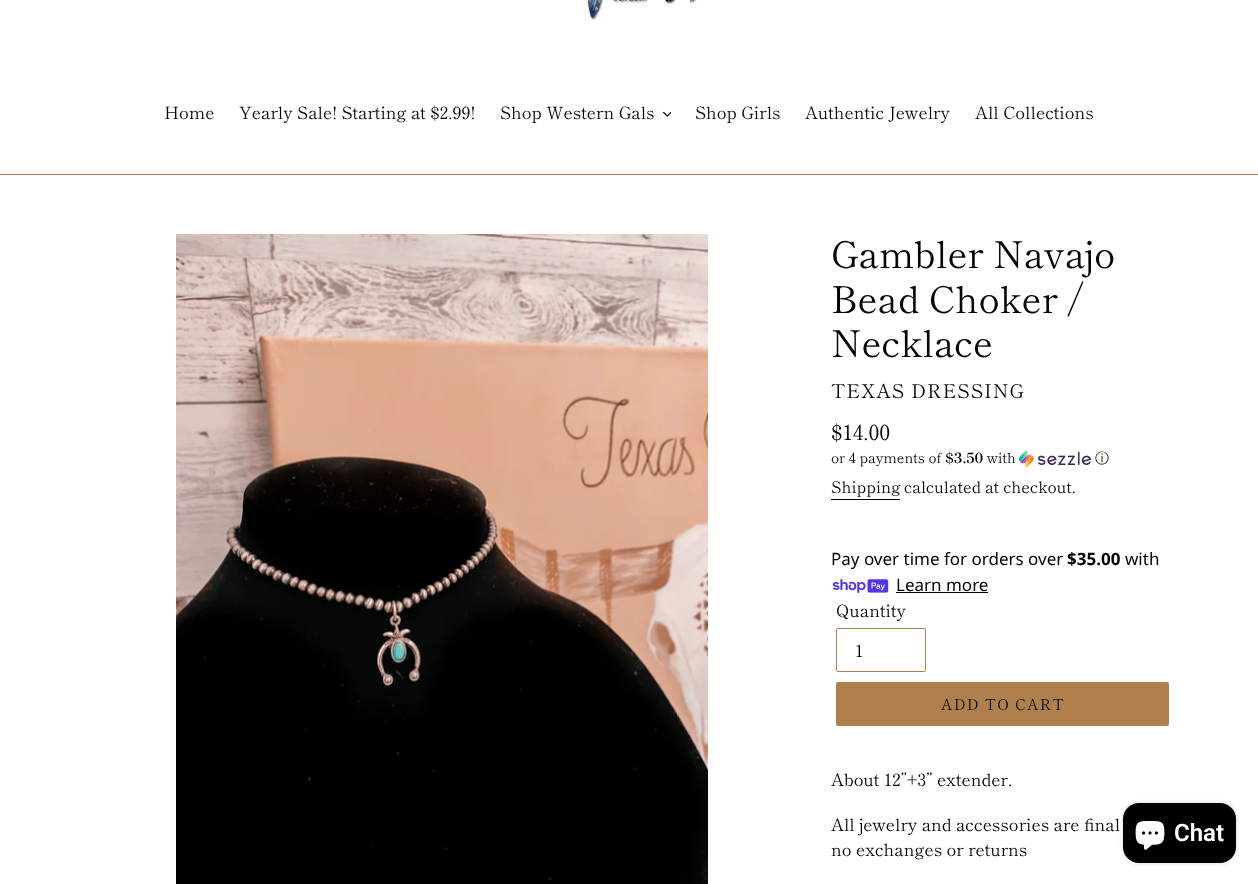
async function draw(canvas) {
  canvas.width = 1258;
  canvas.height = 884;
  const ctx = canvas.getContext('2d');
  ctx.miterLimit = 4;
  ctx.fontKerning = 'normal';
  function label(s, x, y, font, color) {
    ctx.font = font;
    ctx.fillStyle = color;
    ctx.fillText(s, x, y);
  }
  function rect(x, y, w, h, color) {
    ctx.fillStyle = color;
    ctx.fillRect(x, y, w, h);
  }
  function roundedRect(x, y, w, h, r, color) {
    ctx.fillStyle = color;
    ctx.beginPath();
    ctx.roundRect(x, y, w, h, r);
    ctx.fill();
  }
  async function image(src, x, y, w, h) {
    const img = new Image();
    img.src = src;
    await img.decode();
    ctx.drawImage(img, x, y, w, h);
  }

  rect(0, 0, 1258, 884, '#fff');
  await image('assets/img1.png', 587, 0, 110, 21);
  rect(0, 174, 1258, 1, '#b0804c');
  label('Home', 164, 119, '17px Shippori Mincho', '#000606');
  label('Yearly Sale! Starting at $2.99!', 239, 119, '17px Shippori Mincho', '#000606');
  label('Shop Western Gals', 500, 119, '17px Shippori Mincho', '#000606');
  await image('assets/img2.png', 663, 111, 8, 6);
  label('Shop Girls', 695, 119, '17px Shippori Mincho', '#000606');
  label('Authentic Jewelry', 805, 119, '17px Shippori Mincho', '#000606');
  label('All Collections', 975, 119, '17px Shippori Mincho', '#000606');
  await image('assets/img3.png', 176, 234, 532, 650);
  label('Gambler Navajo', 831, 268, '37px Shippori Mincho', '#000606');
  label('Bead Choker /', 831, 313, '37px Shippori Mincho', '#000606');
  label('Necklace', 831, 357, '37px Shippori Mincho', '#000606');
  ctx.letterSpacing = '1px';
  label('TEXAS DRESSING', 831, 398, '19.1px Shippori Mincho', '#000606');
  ctx.letterSpacing = '0px';
  label('$14.00', 831, 440, '21px Shippori Mincho', '#000606');
  label('or 4 payments of', 831, 463, '14px Shippori Mincho', '#000606');
  label('$3.50', 945, 463, 'bold 14px Shippori Mincho', '#000606');
  label('with', 987, 463, '14px Shippori Mincho', '#000606');
  await image('assets/img4.png', 1019, 450, 72, 18);
  label('ⓘ', 1095, 463, '500 14px WenQuanYi Zen Hei', '#000606');
  label('Shipping', 831, 493, '16px Shippori Mincho', '#000606');
  rect(831, 499, 69, 1, '#000606');
  label('calculated at checkout.', 904, 493, '16px Shippori Mincho', '#000606');
  label('Pay over time for orders over', 831, 565, '17px Noto Sans', '#000606');
  label('$35.00', 1067, 565, 'bold 17px Noto Sans', '#000606');
  label('with', 1125, 565, '17px Noto Sans', '#000606');
  await image('assets/img5.png', 832, 579, 57, 14);
  label('Learn more', 896, 591, '17px Noto Sans', '#000606');
  rect(896, 592, 92, 1, '#000606');
  label('Quantity', 836, 617, '17px Shippori Mincho', '#000606');
  ctx.beginPath();
  ctx.roundRect(836.5, 628.5, 89, 43, 1.5);
  ctx.strokeStyle = '#b0804c';
  ctx.stroke();
  label('1', 855, 657, '17px Shippori Mincho', '#000');
  roundedRect(836, 682, 333, 44, 2, '#b0804c');
  ctx.letterSpacing = '1.25px';
  label('ADD TO CART', 941, 710, '15px Shippori Mincho', '#000606');
  ctx.letterSpacing = '0px';
  label('About 12”+3” extender.', 831, 786, '17px Shippori Mincho', '#000606');
  label('All jewelry and accessories are final', 831, 831, '17px Shippori Mincho', '#000606');
  label('no exchanges or returns', 831, 856, '17px Shippori Mincho', '#000606');
  ctx.fillStyle = '#00000026';
  ctx.filter = 'blur(2.5px)';
  ctx.beginPath();
  ctx.roundRect(1123, 803, 113, 60, 16);
  ctx.fill();
  ctx.filter = 'none';
  roundedRect(1123, 803, 113, 60, 16, '#000');
  await image('assets/img6.png', 1135, 821, 30, 29);
  label('Chat', 1174, 841, '600 24px Roboto', '#fff');
}

draw(document.querySelector('canvas'));
